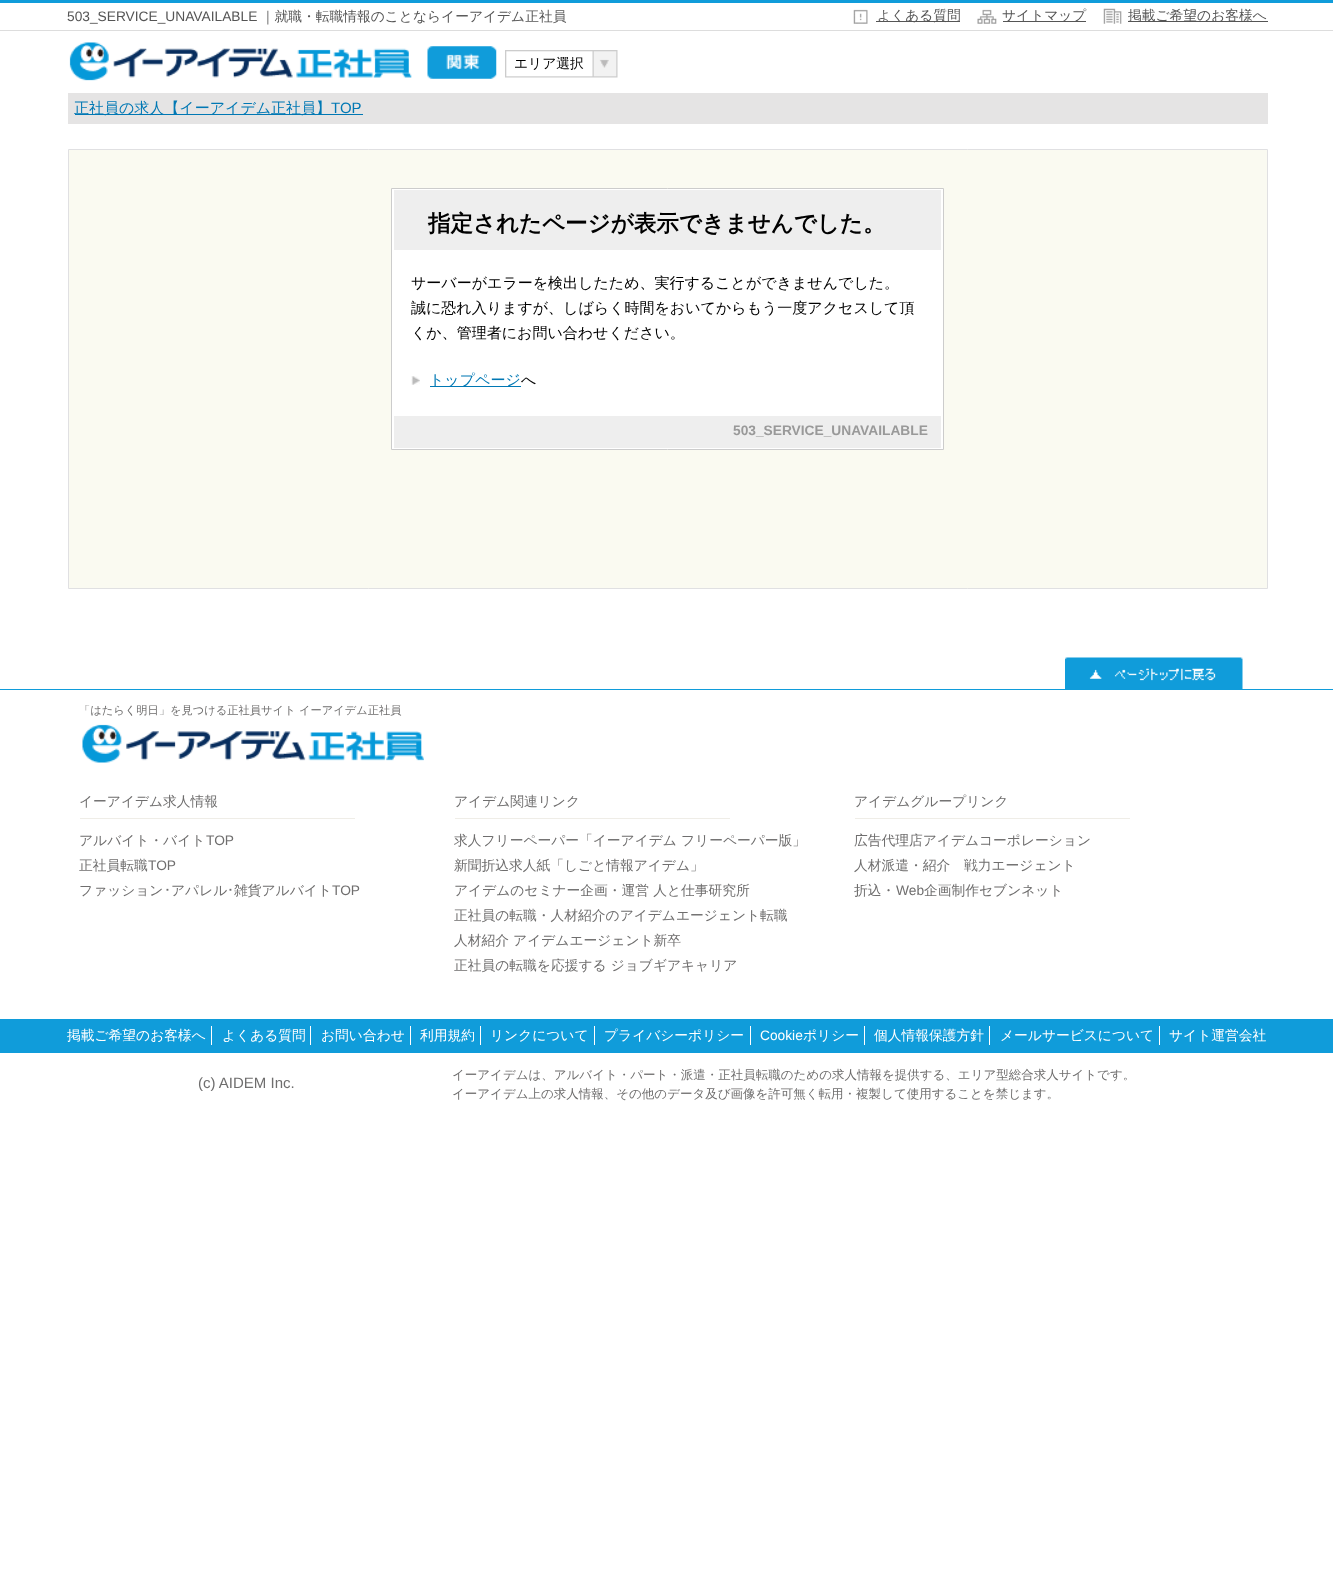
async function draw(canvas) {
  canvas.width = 1333;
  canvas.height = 1587;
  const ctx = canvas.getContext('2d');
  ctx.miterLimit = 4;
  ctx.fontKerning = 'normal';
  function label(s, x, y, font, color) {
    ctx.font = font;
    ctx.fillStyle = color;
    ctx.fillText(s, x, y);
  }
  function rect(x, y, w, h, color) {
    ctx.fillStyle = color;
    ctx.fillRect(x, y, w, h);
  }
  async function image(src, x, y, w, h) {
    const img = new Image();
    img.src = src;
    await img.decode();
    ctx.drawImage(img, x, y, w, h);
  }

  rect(0, 0, 1333, 1587, '#fff');
  rect(0, 0, 1333, 3, '#109cda');
  rect(0, 30, 1333, 1, '#ddd');
  label('503_SERVICE_UNAVAILABLE', 67, 21, '13.75px Liberation Sans', '#555');
  label('｜就職・転職情報のことならイーアイデム正社員', 261, 21, '500 13.75px WenQuanYi Zen Hei', '#555');
  await image('assets/img1.png', 853, 9, 15, 15);
  rect(876, 21, 84, 1, '#555');
  label('よくある質問', 877, 20, '500 13.75px WenQuanYi Zen Hei', '#555');
  await image('assets/img2.png', 977, 9, 20, 15);
  rect(1003, 21, 83, 1, '#555');
  label('サイトマップ', 1002, 20, '500 13.75px WenQuanYi Zen Hei', '#555');
  await image('assets/img3.png', 1103, 8, 19, 16);
  rect(1128, 21, 140, 1, '#555');
  label('掲載ご希望のお客様へ', 1128, 20, '500 13.75px WenQuanYi Zen Hei', '#555');
  await image('assets/img4.png', 69, 42, 343, 39);
  await image('assets/img5.png', 427, 46, 70, 33);
  await image('assets/img6.png', 505, 50, 113, 28);
  label('エリア選択', 514, 68, '500 13.75px WenQuanYi Zen Hei', '#000');
  rect(68, 93, 1200, 31, '#e5e4e4');
  rect(75, 114, 288, 1, '#0178b4');
  label('正社員の求人【イーアイデム正社員】', 74, 113, '500 15px WenQuanYi Zen Hei', '#0178b4');
  label('TOP', 331, 113, '15px Liberation Sans', '#0178b4');
  ctx.fillStyle = '#fafaf1';
  ctx.beginPath();
  ctx.rect(68.5, 149.5, 1199, 439);
  ctx.fill();
  ctx.strokeStyle = '#e0e0e2';
  ctx.stroke();
  ctx.fillStyle = '#fff';
  ctx.beginPath();
  ctx.rect(391.5, 188.5, 552, 261);
  ctx.fill();
  ctx.strokeStyle = '#ccc';
  ctx.stroke();
  rect(394, 190, 547, 60, '#eee');
  label('指定されたページが表示できませんでした。', 428, 231, 'bold 22.5px WenQuanYi Zen Hei', '#000');
  label('サーバーがエラーを検出したため、実行することができませんでした。', 411, 288, '500 15px WenQuanYi Zen Hei', '#000');
  label('誠に恐れ入りますが、しばらく時間をおいてからもう一度アクセスして頂', 411, 313, '500 15px WenQuanYi Zen Hei', '#000');
  label('くか、管理者にお問い合わせください。', 411, 338, '500 15px WenQuanYi Zen Hei', '#000');
  await image('assets/img7.png', 411, 376, 9, 9);
  rect(430, 386, 91, 1, '#0178b4');
  label('トップページ', 429, 385, '500 15px WenQuanYi Zen Hei', '#0178b4');
  label('へ', 521, 385, '500 15px WenQuanYi Zen Hei', '#000');
  rect(394, 416, 547, 32, '#eee');
  label('503_SERVICE_UNAVAILABLE', 733, 435, 'bold 13.75px Liberation Sans', '#999');
  rect(0, 689, 1333, 1, '#109cda');
  await image('assets/img8.png', 1065, 657, 178, 32);
  label('「はたらく明日」を見つける正社員サイト イーアイデム正社員', 79, 714, '500 11.25px WenQuanYi Zen Hei', '#6f6e6e');
  await image('assets/img9.png', 82, 724, 342, 39);
  rect(80, 818, 275, 1, '#efede7');
  label('イーアイデム求人情報', 79, 806, '500 13.75px WenQuanYi Zen Hei', '#6f6e6e');
  label('アルバイト・バイト', 79, 845, '500 13.75px WenQuanYi Zen Hei', '#6f6e6e');
  label('TOP', 206, 845, '13.75px Liberation Sans', '#6f6e6e');
  label('正社員転職', 79, 870, '500 13.75px WenQuanYi Zen Hei', '#6f6e6e');
  label('TOP', 148, 870, '13.75px Liberation Sans', '#6f6e6e');
  label('ファッション', 79, 895, '500 13.75px WenQuanYi Zen Hei', '#6f6e6e');
  label('･', 164, 895, '13.75px IPAPGothic', '#6f6e6e');
  label('アパレル', 171, 895, '500 13.75px WenQuanYi Zen Hei', '#6f6e6e');
  label('･', 227, 895, '13.75px IPAPGothic', '#6f6e6e');
  label('雑貨アルバイト', 234, 895, '500 13.75px WenQuanYi Zen Hei', '#6f6e6e');
  label('TOP', 332, 895, '13.75px Liberation Sans', '#6f6e6e');
  rect(455, 818, 275, 1, '#efede7');
  label('アイデム関連リンク', 454, 806, '500 13.75px WenQuanYi Zen Hei', '#6f6e6e');
  label('求人フリーペーパー「イーアイデム フリーペーパー版」', 454, 845, '500 13.75px WenQuanYi Zen Hei', '#6f6e6e');
  label('新聞折込求人紙「しごと情報アイデム」', 454, 870, '500 13.75px WenQuanYi Zen Hei', '#6f6e6e');
  label('アイデムのセミナー企画・運営 人と仕事研究所', 454, 895, '500 13.75px WenQuanYi Zen Hei', '#6f6e6e');
  label('正社員の転職・人材紹介のアイデムエージェント転職', 454, 920, '500 13.75px WenQuanYi Zen Hei', '#6f6e6e');
  label('人材紹介 アイデムエージェント新卒', 454, 945, '500 13.75px WenQuanYi Zen Hei', '#6f6e6e');
  label('正社員の転職を応援する ジョブギアキャリア', 454, 970, '500 13.75px WenQuanYi Zen Hei', '#6f6e6e');
  rect(855, 818, 275, 1, '#efede7');
  label('アイデムグループリンク', 854, 806, '500 13.75px WenQuanYi Zen Hei', '#6f6e6e');
  label('広告代理店アイデムコーポレーション', 854, 845, '500 13.75px WenQuanYi Zen Hei', '#6f6e6e');
  label('人材派遣・紹介　戦力エージェント', 854, 870, '500 13.75px WenQuanYi Zen Hei', '#6f6e6e');
  label('折込・', 854, 895, '500 13.75px WenQuanYi Zen Hei', '#6f6e6e');
  label('Web', 896, 895, '13.75px Liberation Sans', '#6f6e6e');
  label('企画制作セブンネット', 924, 895, '500 13.75px WenQuanYi Zen Hei', '#6f6e6e');
  rect(0, 1019, 1333, 34, '#109cda');
  rect(211, 1026, 1, 19, '#fff');
  label('掲載ご希望のお客様へ', 67, 1040, '500 13.75px WenQuanYi Zen Hei', '#fff');
  rect(310, 1026, 1, 19, '#fff');
  label('よくある質問', 222, 1040, '500 13.75px WenQuanYi Zen Hei', '#fff');
  rect(410, 1026, 1, 19, '#fff');
  label('お問い合わせ', 321, 1040, '500 13.75px WenQuanYi Zen Hei', '#fff');
  rect(480, 1026, 1, 19, '#fff');
  label('利用規約', 420, 1040, '500 13.75px WenQuanYi Zen Hei', '#fff');
  rect(594, 1026, 1, 19, '#fff');
  label('リンクについて', 490, 1040, '500 13.75px WenQuanYi Zen Hei', '#fff');
  rect(750, 1026, 1, 19, '#fff');
  label('プライバシーポリシー', 604, 1040, '500 13.75px WenQuanYi Zen Hei', '#fff');
  rect(864, 1026, 1, 19, '#fff');
  label('Cookie', 760, 1040, '13.75px Liberation Sans', '#fff');
  label('ポリシー', 803, 1040, '500 13.75px WenQuanYi Zen Hei', '#fff');
  rect(989, 1026, 1, 19, '#fff');
  label('個人情報保護方針', 874, 1040, '500 13.75px WenQuanYi Zen Hei', '#fff');
  rect(1159, 1026, 1, 19, '#fff');
  label('メールサービスについて', 1000, 1040, '500 13.75px WenQuanYi Zen Hei', '#fff');
  label('サイト運営会社', 1169, 1040, '500 13.75px WenQuanYi Zen Hei', '#fff');
  label('(c) AIDEM Inc.', 198, 1088, '15px Liberation Sans', '#6f6e6e');
  label('イーアイデムは、アルバイト・パート・派遣・正社員転職のための求人情報を提供する、エリア型総合求人サイトです。', 452, 1079, '500 12.5px WenQuanYi Zen Hei', '#6f6e6e');
  label('イーアイデム上の求人情報、その他のデータ及び画像を許可無く転用・複製して使用することを禁じます。', 452, 1098, '500 12.5px WenQuanYi Zen Hei', '#6f6e6e');
}

draw(document.querySelector('canvas'));
